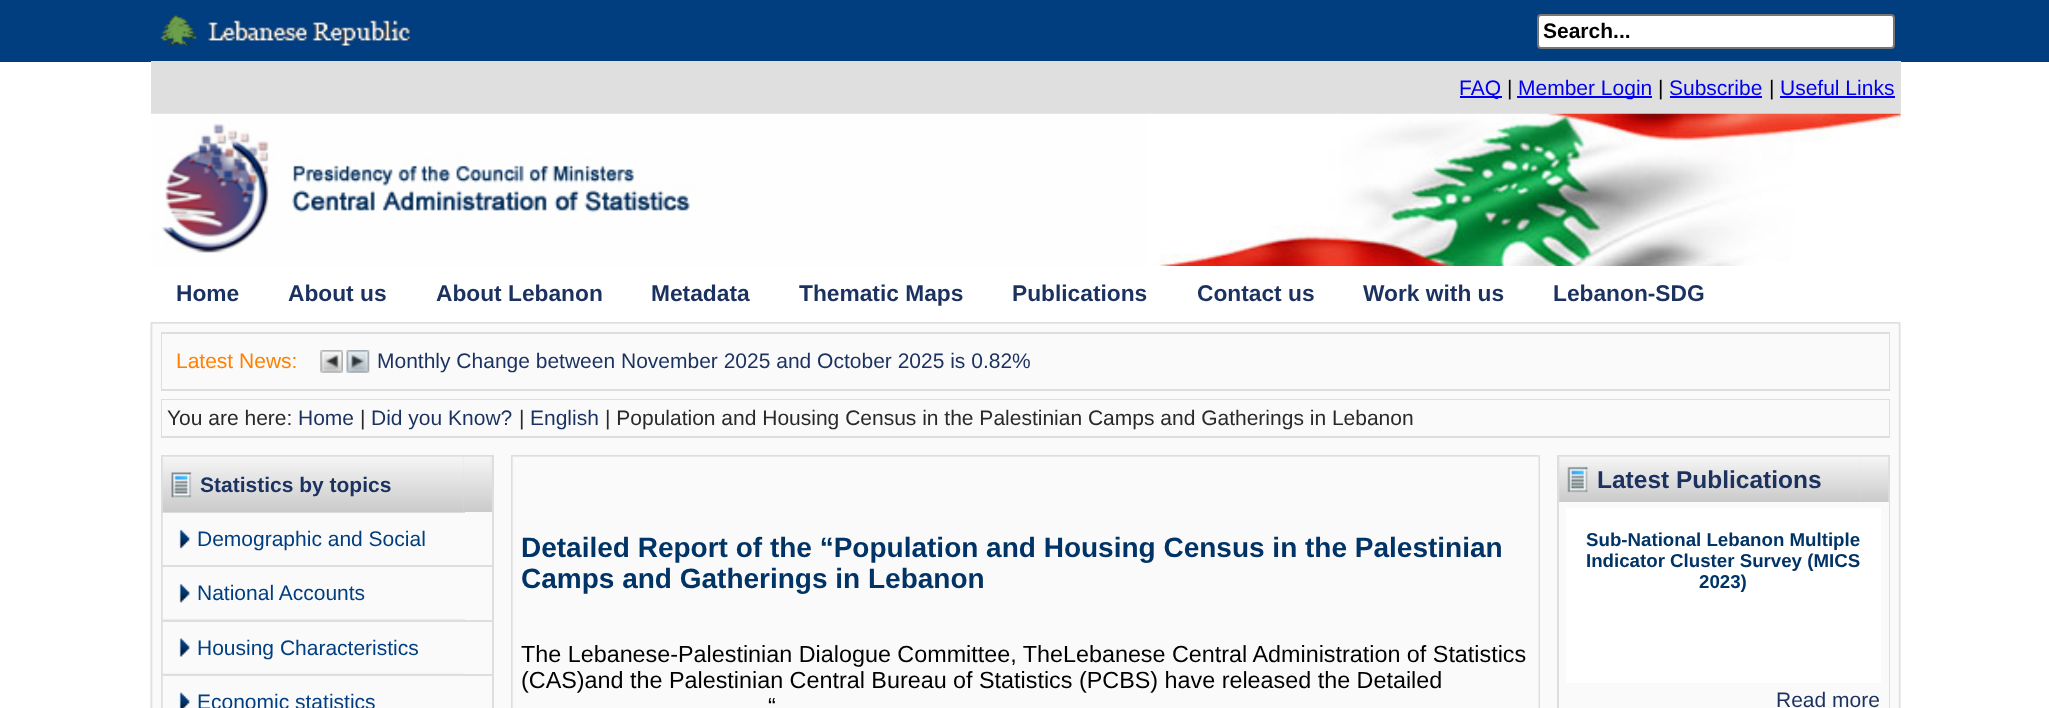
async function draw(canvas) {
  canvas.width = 2049;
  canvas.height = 708;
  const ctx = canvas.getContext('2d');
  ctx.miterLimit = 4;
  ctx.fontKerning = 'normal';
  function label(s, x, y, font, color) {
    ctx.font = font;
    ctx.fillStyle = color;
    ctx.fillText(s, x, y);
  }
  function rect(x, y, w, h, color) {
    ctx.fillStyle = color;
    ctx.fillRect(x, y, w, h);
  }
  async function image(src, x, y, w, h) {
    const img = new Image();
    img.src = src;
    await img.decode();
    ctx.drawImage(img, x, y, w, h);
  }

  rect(0, 0, 2049, 708, '#fff');
  rect(0, 0, 2049, 62, '#003e80');
  await image('assets/img1.png', 160, 15, 250, 39);
  ctx.fillStyle = '#fff';
  ctx.beginPath();
  ctx.roundRect(1538, 15, 356, 33, 3);
  ctx.fill();
  ctx.strokeStyle = '#767676';
  ctx.lineWidth = 2;
  ctx.stroke();
  label('Search...', 1543, 38, 'bold 21px Liberation Sans', '#000');
  rect(151, 61, 1750, 53, '#dfdfdf');
  rect(1460, 96, 42, 2, '#00e');
  label('FAQ', 1459, 95, '21px Liberation Sans', '#00e');
  label('|', 1507, 95, '21px Liberation Sans', '#000');
  rect(1517, 96, 135, 2, '#00e');
  label('Member Login', 1518, 95, '21px Liberation Sans', '#00e');
  label('|', 1658, 95, '21px Liberation Sans', '#000');
  label('Subscribe', 1669, 95, '21px Liberation Sans', '#00e');
  rect(1670, 96, 92, 2, '#00e');
  label('|', 1769, 95, '21px Liberation Sans', '#000');
  label('Useful Links', 1780, 95, '21px Liberation Sans', '#00e');
  rect(1780, 96, 115, 2, '#00e');
  await image('assets/img2.png', 151, 113, 1750, 153);
  label('Home', 176, 301, 'bold 22.75px Liberation Sans', '#1b315f');
  label('About us', 288, 301, 'bold 22.75px Liberation Sans', '#1b315f');
  label('About Lebanon', 436, 301, 'bold 22.75px Liberation Sans', '#1b315f');
  label('Metadata', 651, 301, 'bold 22.75px Liberation Sans', '#1b315f');
  label('Thematic Maps', 799, 301, 'bold 22.75px Liberation Sans', '#1b315f');
  label('Publications', 1012, 301, 'bold 22.75px Liberation Sans', '#1b315f');
  label('Contact us', 1197, 301, 'bold 22.75px Liberation Sans', '#1b315f');
  label('Work with us', 1363, 301, 'bold 22.75px Liberation Sans', '#1b315f');
  label('Lebanon-SDG', 1553, 301, 'bold 22.75px Liberation Sans', '#1b315f');
  await image('assets/img3.png', 150, 322, 1749, 2);
  await image('assets/img4.png', 150, 322, 1749, 2);
  await image('assets/img8.png', 1899, 323, 2, 385);
  await image('assets/img5.png', 1899, 322, 2, 2);
  await image('assets/img6.png', 1899, 322, 2, 2);
  await image('assets/img7.png', 150, 323, 1749, 385);
  rect(161, 332, 1729, 59, '#dedede');
  rect(162, 334, 1727, 55, '#fafafa');
  label('Latest News:', 176, 368, '21px Liberation Sans', '#ff8000');
  await image('assets/img9.png', 320, 350, 23, 23);
  await image('assets/img10.png', 346, 350, 24, 23);
  label('Monthly Change between November 2025 and October 2025 is 0.82%', 377, 368, '21px Liberation Sans', '#1b315f');
  rect(161, 399, 1729, 39, '#dedede');
  rect(162, 400, 1727, 36, '#fafafa');
  label('You are here:', 167, 425, '21px Liberation Sans', '#292929');
  label('Home', 298, 425, '21px Liberation Sans', '#1b315f');
  label('|', 360, 425, '21px Liberation Sans', '#292929');
  label('Did you Know?', 371, 425, '21px Liberation Sans', '#1b315f');
  label('|', 519, 425, '21px Liberation Sans', '#292929');
  label('English', 530, 425, '21px Liberation Sans', '#1b315f');
  label('| Population and Housing Census in the Palestinian Camps and Gatherings in Lebanon', 605, 425, '21px Liberation Sans', '#292929');
  rect(161, 455, 333, 253, '#dedede');
  await image('assets/img11.png', 162, 456, 302, 57);
  await image('assets/img12.png', 464, 456, 28, 57);
  label('Statistics by topics', 200, 492, 'bold 21px Liberation Sans', '#1b315f');
  await image('assets/img13.png', 162, 512, 303, 54);
  rect(465, 512, 27, 53, '#fafafa');
  label('Demographic and Social', 197, 546, '21px Liberation Sans', '#003e80');
  rect(163, 565, 302, 1, '#dedede');
  await image('assets/img14.png', 162, 567, 303, 53);
  rect(465, 567, 27, 53, '#fafafa');
  label('National Accounts', 197, 600, '21px Liberation Sans', '#003e80');
  await image('assets/img15.png', 162, 621, 303, 53);
  rect(163, 621, 302, 1, '#dedede');
  rect(465, 622, 27, 52, '#fafafa');
  label('Housing Characteristics', 197, 655, '21px Liberation Sans', '#003e80');
  await image('assets/img16.png', 162, 675, 303, 33);
  rect(163, 675, 302, 1, '#dedede');
  rect(465, 676, 27, 32, '#fafafa');
  label('Economic statistics', 197, 709, '21px Liberation Sans', '#003e80');
  await image('assets/img17.png', 511, 455, 1028, 2);
  await image('assets/img18.png', 511, 455, 1028, 2);
  await image('assets/img22.png', 1538, 456, 2, 252);
  await image('assets/img19.png', 1538, 455, 2, 2);
  await image('assets/img20.png', 1538, 456, 2, 1);
  await image('assets/img21.png', 511, 456, 1027, 252);
  label('Detailed Report of the “Population and Housing Census in the Palestinian', 521, 557, 'bold 28px Liberation Sans', '#036');
  label('Camps and Gatherings in Lebanon', 521, 588, 'bold 28px Liberation Sans', '#036');
  label('The Lebanese-Palestinian Dialogue Committee, TheLebanese Central Administration of Statistics', 521, 662, '23.35px Liberation Sans', '#000');
  label('(CAS)and the Palestinian Central Bureau of Statistics (PCBS) have released the Detailed', 521, 688, '23.35px Liberation Sans', '#000');
  label('“', 768, 714, '23.35px Liberation Sans', '#000');
  rect(1557, 455, 333, 253, '#dedede');
  await image('assets/img23.png', 1559, 456, 302, 46);
  await image('assets/img24.png', 1860, 456, 29, 46);
  label('Latest Publications', 1597, 488, 'bold 24.5px Liberation Sans', '#1b315f');
  rect(1559, 502, 330, 206, '#fafafa');
  rect(1566, 508, 315, 175, '#fff');
  label('Sub-National Lebanon Multiple', 1586, 546, 'bold 18.7px Liberation Sans', '#036');
  label('Indicator Cluster Survey (MICS', 1586, 567, 'bold 18.7px Liberation Sans', '#036');
  label('2023)', 1699, 588, 'bold 18.7px Liberation Sans', '#036');
  label('Read more', 1776, 707, '21px Liberation Sans', '#1b315f');
}

draw(document.querySelector('canvas'));
